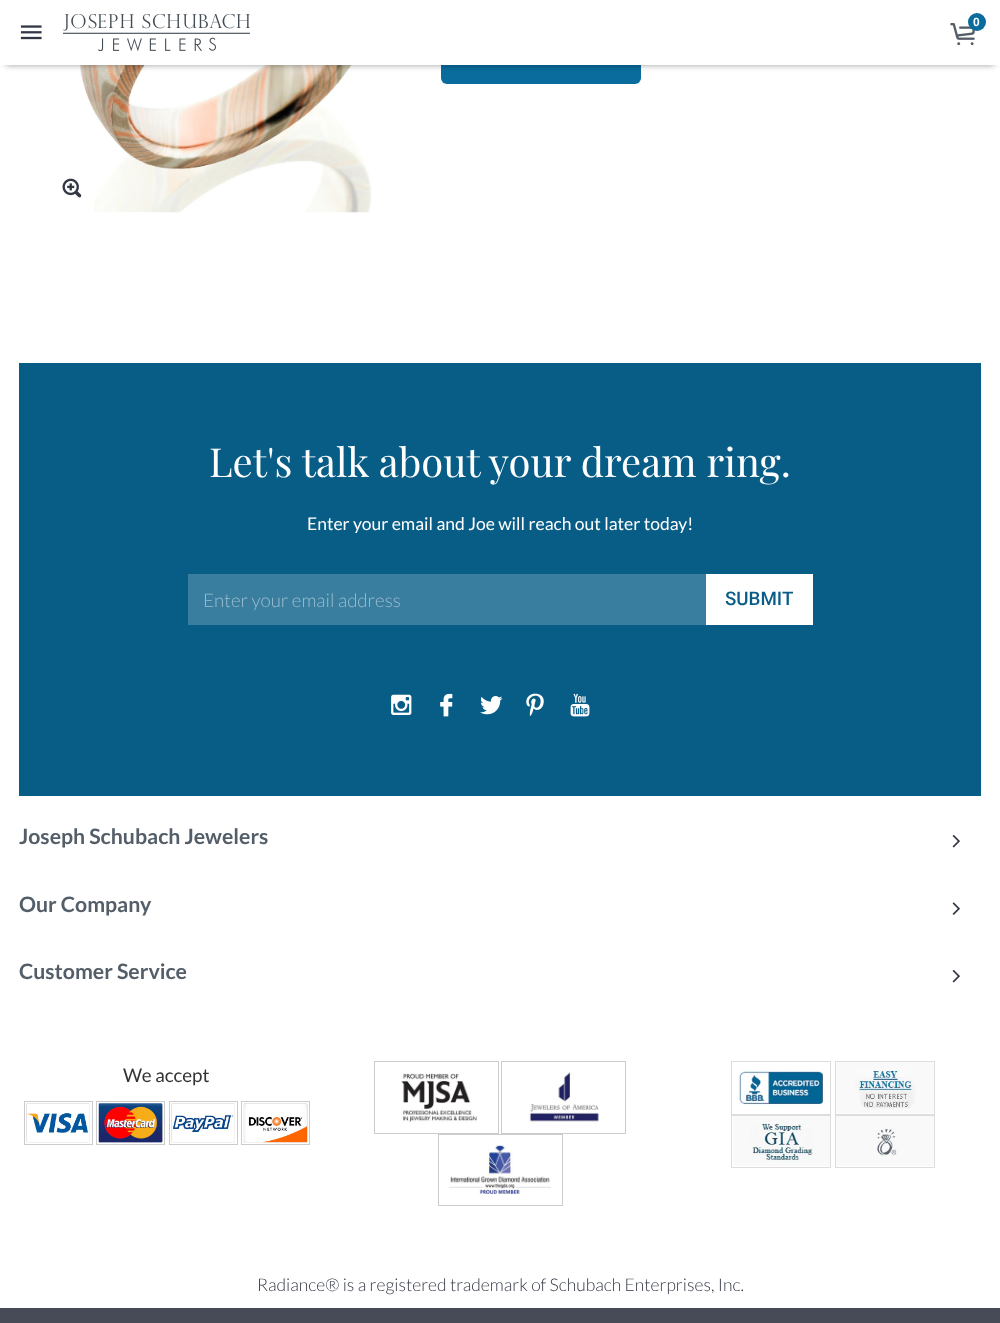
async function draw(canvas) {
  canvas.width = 1000;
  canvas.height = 1323;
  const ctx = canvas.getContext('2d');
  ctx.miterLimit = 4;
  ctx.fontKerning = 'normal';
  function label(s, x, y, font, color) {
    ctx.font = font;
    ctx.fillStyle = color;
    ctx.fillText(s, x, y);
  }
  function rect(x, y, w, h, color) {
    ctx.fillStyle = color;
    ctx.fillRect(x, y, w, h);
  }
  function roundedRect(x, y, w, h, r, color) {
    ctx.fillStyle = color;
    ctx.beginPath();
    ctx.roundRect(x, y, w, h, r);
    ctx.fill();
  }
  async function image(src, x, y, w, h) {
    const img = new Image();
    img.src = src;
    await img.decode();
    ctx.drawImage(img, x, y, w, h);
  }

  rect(0, 0, 1000, 1323, '#fff');
  roundedRect(441, 30, 200, 54, 6, '#0a6c9d');
  await image('assets/img5.png', 79, 65, 293, 148);
  ctx.fillStyle = '#00000066';
  ctx.filter = 'blur(3px)';
  ctx.beginPath();
  ctx.rect(6, 13, 988, 52);
  ctx.fill();
  ctx.filter = 'none';
  rect(0, 7, 1000, 58, '#fff');
  await image('assets/img1.png', 63, 14, 187, 37);
  await image('assets/img2.png', 950, 23, 25, 23);
  ctx.fillStyle = '#0a6c9d';
  ctx.beginPath();
  ctx.arc(977, 22, 9, 0, 2 * Math.PI);
  ctx.fill();
  label('0', 973, 26, 'bold 12px Liberation Sans', '#fff');
  await image('assets/img3.png', 20, 25, 22, 15);
  rect(89, 200, 5, 12, '#ffffffcc');
  await image('assets/img4.png', 62, 178, 20, 20);
  rect(19, 363, 962, 433, '#085d87');
  label('Let\'s talk about your dream ring.', 209, 477, '40px Playfair Display', '#fff');
  label('Enter your email and Joe will reach out later today!', 307, 530, '17.5px Lato', '#fff');
  rect(188, 574, 518, 51, '#397d9f');
  label('Enter your email address', 203, 607, '300 18.75px Lato', '#9cbecf');
  rect(706, 574, 107, 51, '#fff');
  label('SUBMIT', 725, 605, '500 18.75px Roboto', '#085d87');
  await image('assets/img6.png', 391, 694, 21, 21);
  await image('assets/img7.png', 440, 693, 13, 24);
  await image('assets/img8.png', 480, 696, 23, 19);
  await image('assets/img9.png', 526, 693, 18, 23);
  await image('assets/img10.png', 570, 693, 20, 24);
  label('Joseph Schubach Jewelers', 19, 844, 'bold 21.25px Lato', '#535e69');
  await image('assets/img11.png', 952, 835, 8, 13);
  label('Our Company', 19, 912, 'bold 21.25px Lato', '#535e69');
  await image('assets/img12.png', 952, 902, 8, 13);
  label('Customer Service', 19, 979, 'bold 21.25px Lato', '#535e69');
  await image('assets/img11.png', 952, 970, 8, 13);
  label('We accept', 123, 1082, '18.75px Lato', '#333');
  ctx.strokeStyle = '#ccc';
  ctx.strokeRect(24.5, 1101.5, 68, 43);
  ctx.strokeRect(96.5, 1101.5, 68, 43);
  ctx.strokeRect(169.5, 1101.5, 68, 43);
  ctx.strokeRect(241.5, 1101.5, 68, 43);
  await image('assets/img13.png', 26, 1103, 64, 40);
  await image('assets/img14.png', 98, 1102, 66, 42);
  await image('assets/img15.png', 171, 1103, 64, 40);
  await image('assets/img16.png', 243, 1103, 66, 40);
  ctx.strokeRect(374.5, 1061.5, 124, 72);
  ctx.strokeRect(501.5, 1061.5, 124, 72);
  await image('assets/img17.png', 401, 1073, 76, 50);
  await image('assets/img18.png', 529, 1072, 70, 50);
  ctx.strokeRect(438.5, 1134.5, 124, 71);
  await image('assets/img19.png', 449, 1145, 102, 49);
  ctx.strokeStyle = '#ddd';
  ctx.strokeRect(731.5, 1061.5, 99, 53);
  ctx.strokeRect(835.5, 1061.5, 99, 53);
  await image('assets/img20.png', 738, 1069, 87, 40);
  await image('assets/img21.png', 836, 1062, 98, 51);
  ctx.strokeRect(731.5, 1115.5, 99, 52);
  ctx.strokeRect(835.5, 1115.5, 99, 52);
  await image('assets/img22.png', 733, 1116, 97, 50);
  await image('assets/img23.png', 836, 1116, 98, 50);
  label('Radiance® is a registered trademark of Schubach Enterprises, Inc.', 257, 1291, '300 17.5px Lato', '#333745');
  rect(0, 1308, 1000, 15, '#474b58');
}

draw(document.querySelector('canvas'));
